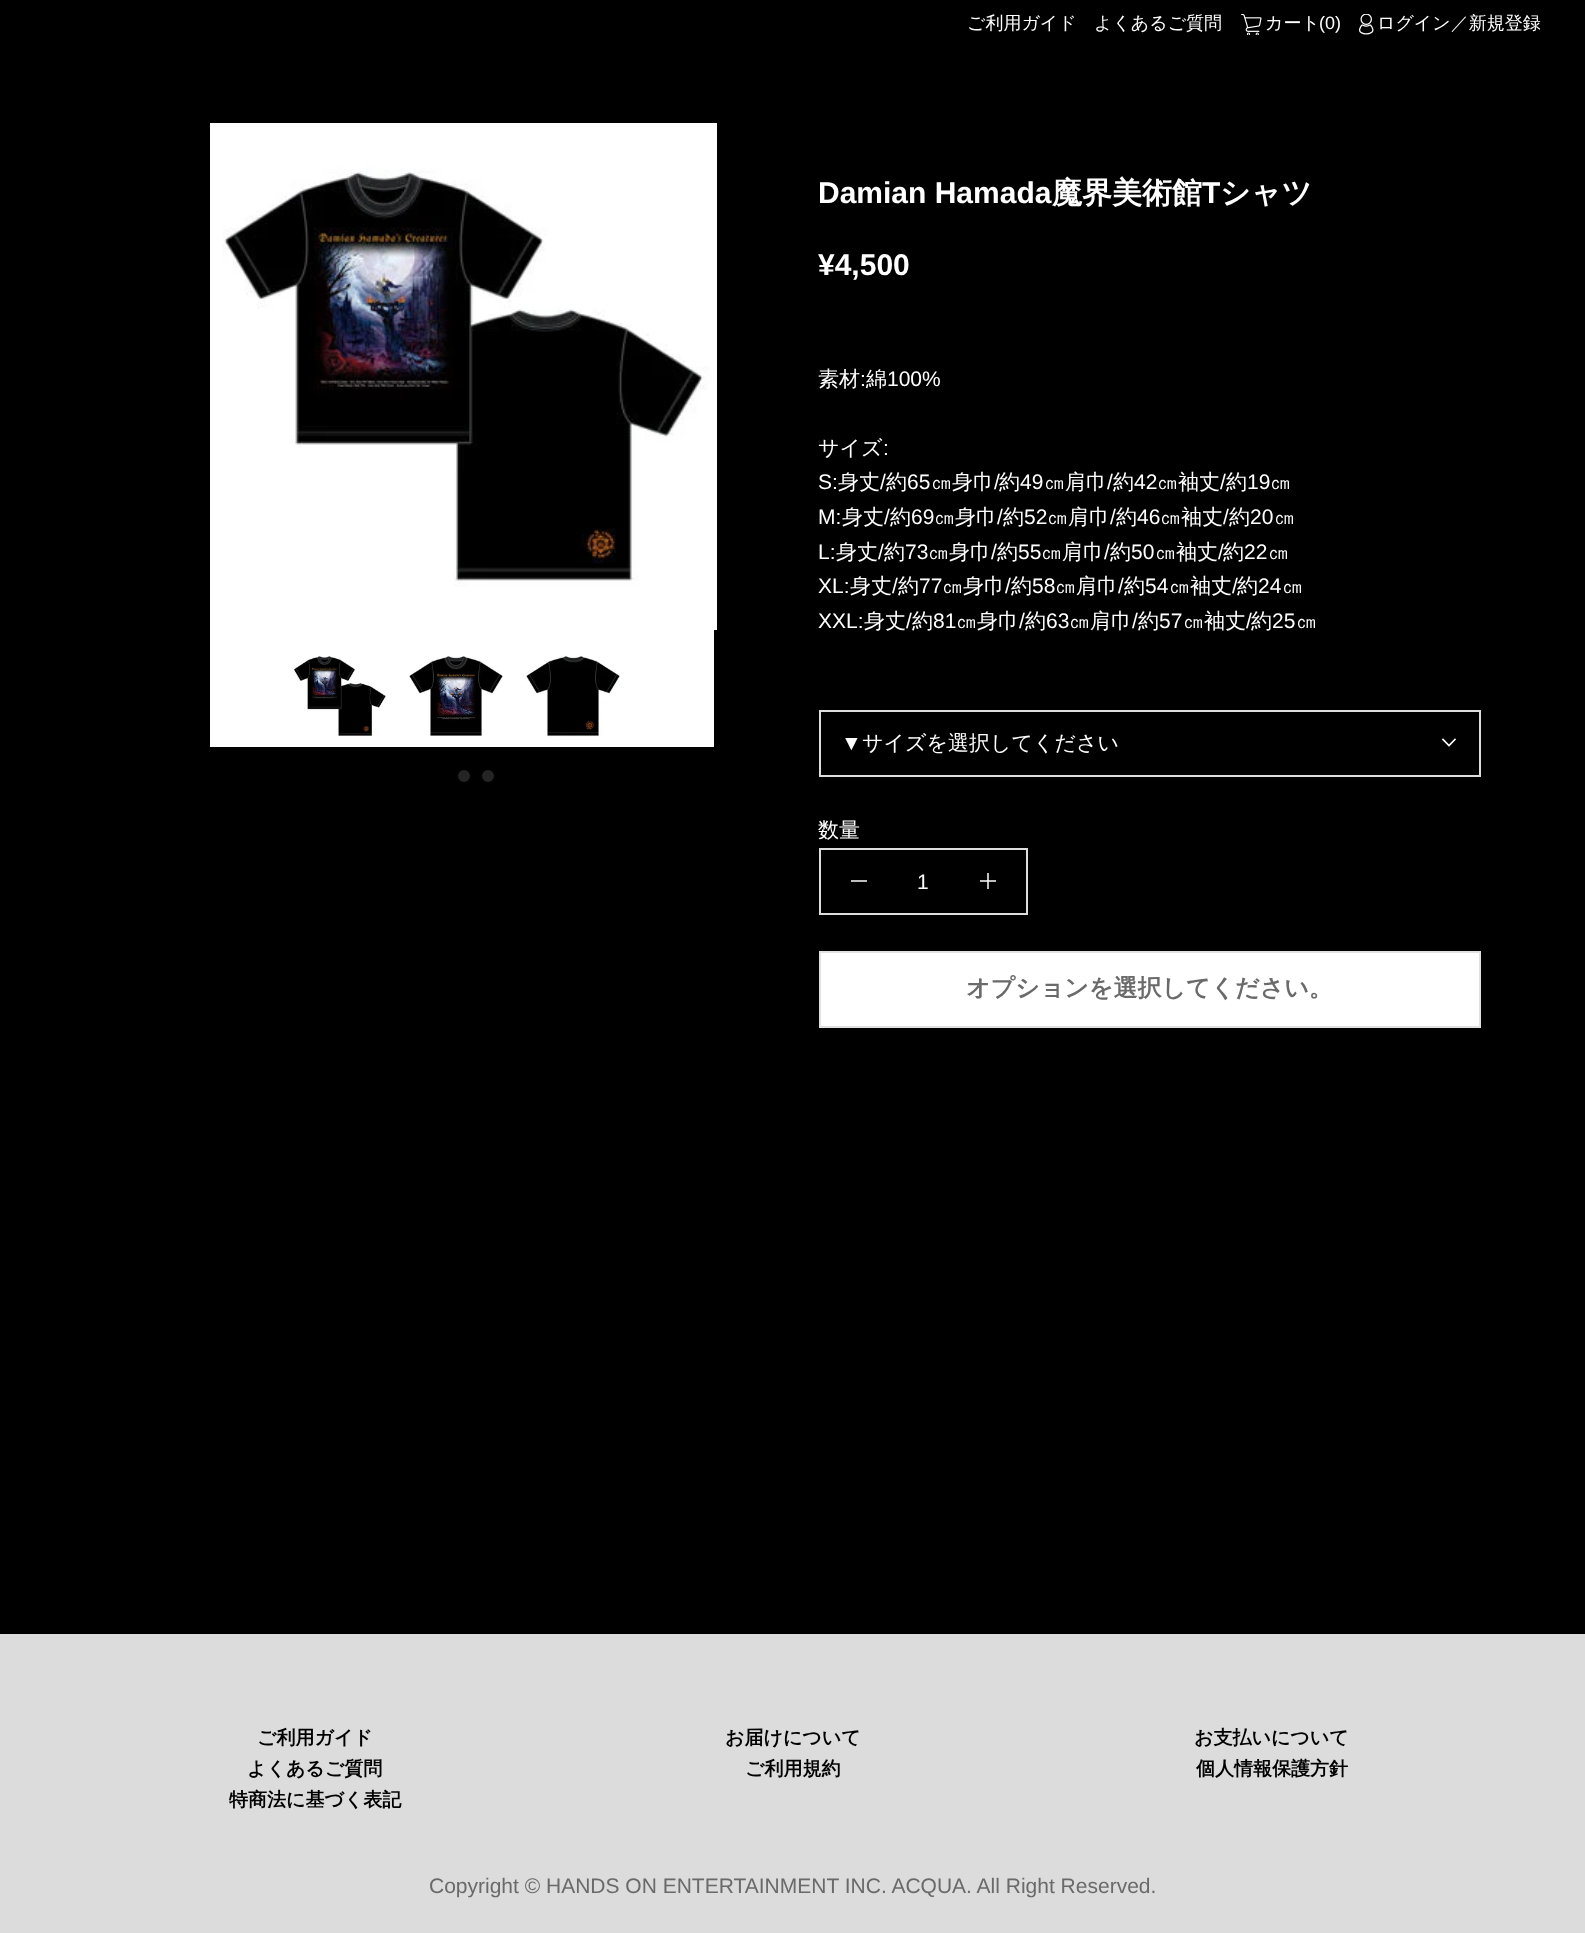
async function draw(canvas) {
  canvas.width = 1585;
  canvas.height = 1933;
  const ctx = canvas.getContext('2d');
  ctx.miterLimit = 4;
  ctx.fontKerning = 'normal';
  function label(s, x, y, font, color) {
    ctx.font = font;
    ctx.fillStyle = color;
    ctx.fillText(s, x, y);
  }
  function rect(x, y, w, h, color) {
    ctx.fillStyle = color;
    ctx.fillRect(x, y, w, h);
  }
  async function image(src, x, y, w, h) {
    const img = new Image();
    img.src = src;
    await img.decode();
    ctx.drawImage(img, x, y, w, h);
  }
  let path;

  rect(0, 0, 1585, 1933, '#000');
  label('ご利用ガイド', 967, 29, '500 18px WenQuanYi Zen Hei', '#fff');
  label('よくあるご質問', 1094, 29, '500 18px WenQuanYi Zen Hei', '#fff');
  await image('assets/img1.png', 1241, 14, 21, 21);
  label('カート', 1265, 29, '500 18px WenQuanYi Zen Hei', '#fff');
  label('(0)', 1319, 29, '18px Liberation Sans', '#fff');
  await image('assets/img2.png', 1359, 14, 15, 21);
  label('ログイン／新規登録', 1377, 29, '500 18px WenQuanYi Zen Hei', '#fff');
  rect(210, 123, 504, 624, '#fff');
  await image('assets/img3.png', 222, 123, 495, 507);
  await image('assets/img4.png', 294, 656, 92, 80);
  await image('assets/img5.png', 409, 656, 94, 80);
  await image('assets/img6.png', 526, 655, 94, 82);
  ctx.fillStyle = '#242424';
  ctx.beginPath();
  ctx.arc(464, 776, 6, 0, 2 * Math.PI);
  ctx.fill();
  ctx.beginPath();
  ctx.arc(488, 776, 6, 0, 2 * Math.PI);
  ctx.fill();
  rect(980, 880, 16, 2, '#bfbfbf');
  label('Damian Hamada', 818, 203, 'bold 30px Liberation Sans', '#fff');
  label('魔界美術館', 1052, 203, 'bold 30px WenQuanYi Zen Hei', '#fff');
  label('T', 1202, 203, 'bold 30px Liberation Sans', '#fff');
  label('シャツ', 1220, 203, 'bold 30px WenQuanYi Zen Hei', '#fff');
  label('¥4,500', 818, 275, 'bold 30px Liberation Sans', '#fff');
  label('素材', 818, 386, '500 21px WenQuanYi Zen Hei', '#fff');
  label(':', 860, 386, '21px Liberation Sans', '#fff');
  label('綿', 866, 386, '500 21px WenQuanYi Zen Hei', '#fff');
  label('100%', 887, 386, '21px Liberation Sans', '#fff');
  label('サイズ', 818, 455, '500 21px WenQuanYi Zen Hei', '#fff');
  label(':', 883, 455, '21px Liberation Sans', '#fff');
  label('S:', 818, 489, '21px Liberation Sans', '#fff');
  label('身丈', 838, 489, '500 21px WenQuanYi Zen Hei', '#fff');
  label('/', 880, 489, '21px Liberation Sans', '#fff');
  label('約', 886, 489, '500 21px WenQuanYi Zen Hei', '#fff');
  label('65', 907, 489, '21px Liberation Sans', '#fff');
  label('㎝身巾', 931, 489, '500 21px WenQuanYi Zen Hei', '#fff');
  label('/', 994, 489, '21px Liberation Sans', '#fff');
  label('約', 999, 489, '500 21px WenQuanYi Zen Hei', '#fff');
  label('49', 1020, 489, '21px Liberation Sans', '#fff');
  label('㎝肩巾', 1044, 489, '500 21px WenQuanYi Zen Hei', '#fff');
  label('/', 1107, 489, '21px Liberation Sans', '#fff');
  label('約', 1113, 489, '500 21px WenQuanYi Zen Hei', '#fff');
  label('42', 1134, 489, '21px Liberation Sans', '#fff');
  label('㎝袖丈', 1157, 489, '500 21px WenQuanYi Zen Hei', '#fff');
  label('/', 1220, 489, '21px Liberation Sans', '#fff');
  label('約', 1226, 489, '500 21px WenQuanYi Zen Hei', '#fff');
  label('19', 1247, 489, '21px Liberation Sans', '#fff');
  label('㎝', 1270, 489, '500 21px WenQuanYi Zen Hei', '#fff');
  label('M:', 818, 524, '21px Liberation Sans', '#fff');
  label('身丈', 842, 524, '500 21px WenQuanYi Zen Hei', '#fff');
  label('/', 884, 524, '21px Liberation Sans', '#fff');
  label('約', 890, 524, '500 21px WenQuanYi Zen Hei', '#fff');
  label('69', 911, 524, '21px Liberation Sans', '#fff');
  label('㎝身巾', 934, 524, '500 21px WenQuanYi Zen Hei', '#fff');
  label('/', 997, 524, '21px Liberation Sans', '#fff');
  label('約', 1003, 524, '500 21px WenQuanYi Zen Hei', '#fff');
  label('52', 1024, 524, '21px Liberation Sans', '#fff');
  label('㎝肩巾', 1047, 524, '500 21px WenQuanYi Zen Hei', '#fff');
  label('/', 1110, 524, '21px Liberation Sans', '#fff');
  label('約', 1116, 524, '500 21px WenQuanYi Zen Hei', '#fff');
  label('46', 1137, 524, '21px Liberation Sans', '#fff');
  label('㎝袖丈', 1160, 524, '500 21px WenQuanYi Zen Hei', '#fff');
  label('/', 1223, 524, '21px Liberation Sans', '#fff');
  label('約', 1229, 524, '500 21px WenQuanYi Zen Hei', '#fff');
  label('20', 1250, 524, '21px Liberation Sans', '#fff');
  label('㎝', 1274, 524, '500 21px WenQuanYi Zen Hei', '#fff');
  label('L:', 818, 559, '21px Liberation Sans', '#fff');
  label('身丈', 836, 559, '500 21px WenQuanYi Zen Hei', '#fff');
  label('/', 878, 559, '21px Liberation Sans', '#fff');
  label('約', 884, 559, '500 21px WenQuanYi Zen Hei', '#fff');
  label('73', 905, 559, '21px Liberation Sans', '#fff');
  label('㎝身巾', 928, 559, '500 21px WenQuanYi Zen Hei', '#fff');
  label('/', 991, 559, '21px Liberation Sans', '#fff');
  label('約', 997, 559, '500 21px WenQuanYi Zen Hei', '#fff');
  label('55', 1018, 559, '21px Liberation Sans', '#fff');
  label('㎝肩巾', 1041, 559, '500 21px WenQuanYi Zen Hei', '#fff');
  label('/', 1104, 559, '21px Liberation Sans', '#fff');
  label('約', 1110, 559, '500 21px WenQuanYi Zen Hei', '#fff');
  label('50', 1131, 559, '21px Liberation Sans', '#fff');
  label('㎝袖丈', 1155, 559, '500 21px WenQuanYi Zen Hei', '#fff');
  label('/', 1218, 559, '21px Liberation Sans', '#fff');
  label('約', 1223, 559, '500 21px WenQuanYi Zen Hei', '#fff');
  label('22', 1244, 559, '21px Liberation Sans', '#fff');
  label('㎝', 1268, 559, '500 21px WenQuanYi Zen Hei', '#fff');
  label('XL:', 818, 593, '21px Liberation Sans', '#fff');
  label('身丈', 850, 593, '500 21px WenQuanYi Zen Hei', '#fff');
  label('/', 892, 593, '21px Liberation Sans', '#fff');
  label('約', 898, 593, '500 21px WenQuanYi Zen Hei', '#fff');
  label('77', 919, 593, '21px Liberation Sans', '#fff');
  label('㎝身巾', 942, 593, '500 21px WenQuanYi Zen Hei', '#fff');
  label('/', 1005, 593, '21px Liberation Sans', '#fff');
  label('約', 1011, 593, '500 21px WenQuanYi Zen Hei', '#fff');
  label('58', 1032, 593, '21px Liberation Sans', '#fff');
  label('㎝肩巾', 1055, 593, '500 21px WenQuanYi Zen Hei', '#fff');
  label('/', 1118, 593, '21px Liberation Sans', '#fff');
  label('約', 1124, 593, '500 21px WenQuanYi Zen Hei', '#fff');
  label('54', 1145, 593, '21px Liberation Sans', '#fff');
  label('㎝袖丈', 1169, 593, '500 21px WenQuanYi Zen Hei', '#fff');
  label('/', 1232, 593, '21px Liberation Sans', '#fff');
  label('約', 1237, 593, '500 21px WenQuanYi Zen Hei', '#fff');
  label('24', 1258, 593, '21px Liberation Sans', '#fff');
  label('㎝', 1282, 593, '500 21px WenQuanYi Zen Hei', '#fff');
  label('XXL:', 818, 628, '21px Liberation Sans', '#fff');
  label('身丈', 864, 628, '500 21px WenQuanYi Zen Hei', '#fff');
  label('/', 906, 628, '21px Liberation Sans', '#fff');
  label('約', 912, 628, '500 21px WenQuanYi Zen Hei', '#fff');
  label('81', 933, 628, '21px Liberation Sans', '#fff');
  label('㎝身巾', 956, 628, '500 21px WenQuanYi Zen Hei', '#fff');
  label('/', 1019, 628, '21px Liberation Sans', '#fff');
  label('約', 1025, 628, '500 21px WenQuanYi Zen Hei', '#fff');
  label('63', 1046, 628, '21px Liberation Sans', '#fff');
  label('㎝肩巾', 1069, 628, '500 21px WenQuanYi Zen Hei', '#fff');
  label('/', 1132, 628, '21px Liberation Sans', '#fff');
  label('約', 1138, 628, '500 21px WenQuanYi Zen Hei', '#fff');
  label('57', 1159, 628, '21px Liberation Sans', '#fff');
  label('㎝袖丈', 1183, 628, '500 21px WenQuanYi Zen Hei', '#fff');
  label('/', 1246, 628, '21px Liberation Sans', '#fff');
  label('約', 1251, 628, '500 21px WenQuanYi Zen Hei', '#fff');
  label('25', 1272, 628, '21px Liberation Sans', '#fff');
  label('㎝', 1296, 628, '500 21px WenQuanYi Zen Hei', '#fff');
  ctx.strokeStyle = '#ddd';
  ctx.lineWidth = 2;
  ctx.strokeRect(820, 711, 660, 65);
  label('▼', 841, 750, '21px Liberation Sans', '#fff');
  label('サイズを選択してください', 862, 750, '500 21px WenQuanYi Zen Hei', '#fff');
  path = new Path2D('M1455 739.5L1449 745.5L1443 739.5');
  ctx.strokeStyle = '#fff';
  ctx.lineWidth = 1.6;
  ctx.lineCap = 'square';
  ctx.stroke(path);
  label('数量', 818, 837, '500 21px WenQuanYi Zen Hei', '#fff');
  ctx.strokeStyle = '#ddd';
  ctx.lineWidth = 2;
  ctx.strokeRect(820, 849, 207, 65);
  rect(851, 880, 16, 2, '#bfbfbf');
  label('1', 917, 889, '21px Liberation Sans', '#fff');
  rect(987, 873, 2, 16, '#bfbfbf');
  rect(987, 880, 2, 2, '#efefef');
  ctx.fillStyle = '#fff';
  ctx.beginPath();
  ctx.rect(820, 952, 660, 75);
  ctx.fill();
  ctx.strokeStyle = '#e1e1e1';
  ctx.stroke();
  label('オプションを選択してください。', 966, 996, 'bold 24px WenQuanYi Zen Hei', '#6a6a6a');
  rect(0, 1634, 1585, 299, '#dcdcdc');
  label('ご利用ガイド', 257, 1744, 'bold 19px WenQuanYi Zen Hei', '#000');
  label('お届けについて', 725, 1744, 'bold 19px WenQuanYi Zen Hei', '#000');
  label('お支払いについて', 1194, 1744, 'bold 19px WenQuanYi Zen Hei', '#000');
  label('よくあるご質問', 247, 1775, 'bold 19px WenQuanYi Zen Hei', '#000');
  label('ご利用規約', 745, 1775, 'bold 19px WenQuanYi Zen Hei', '#000');
  label('個人情報保護方針', 1196, 1775, 'bold 19px WenQuanYi Zen Hei', '#000');
  label('特商法に基づく表記', 229, 1806, 'bold 19px WenQuanYi Zen Hei', '#000');
  label('Copyright © HANDS ON ENTERTAINMENT INC. ACQUA. All Right Reserved.', 429, 1893, '21px Liberation Sans', '#6a6a6a');
}

draw(document.querySelector('canvas'));
